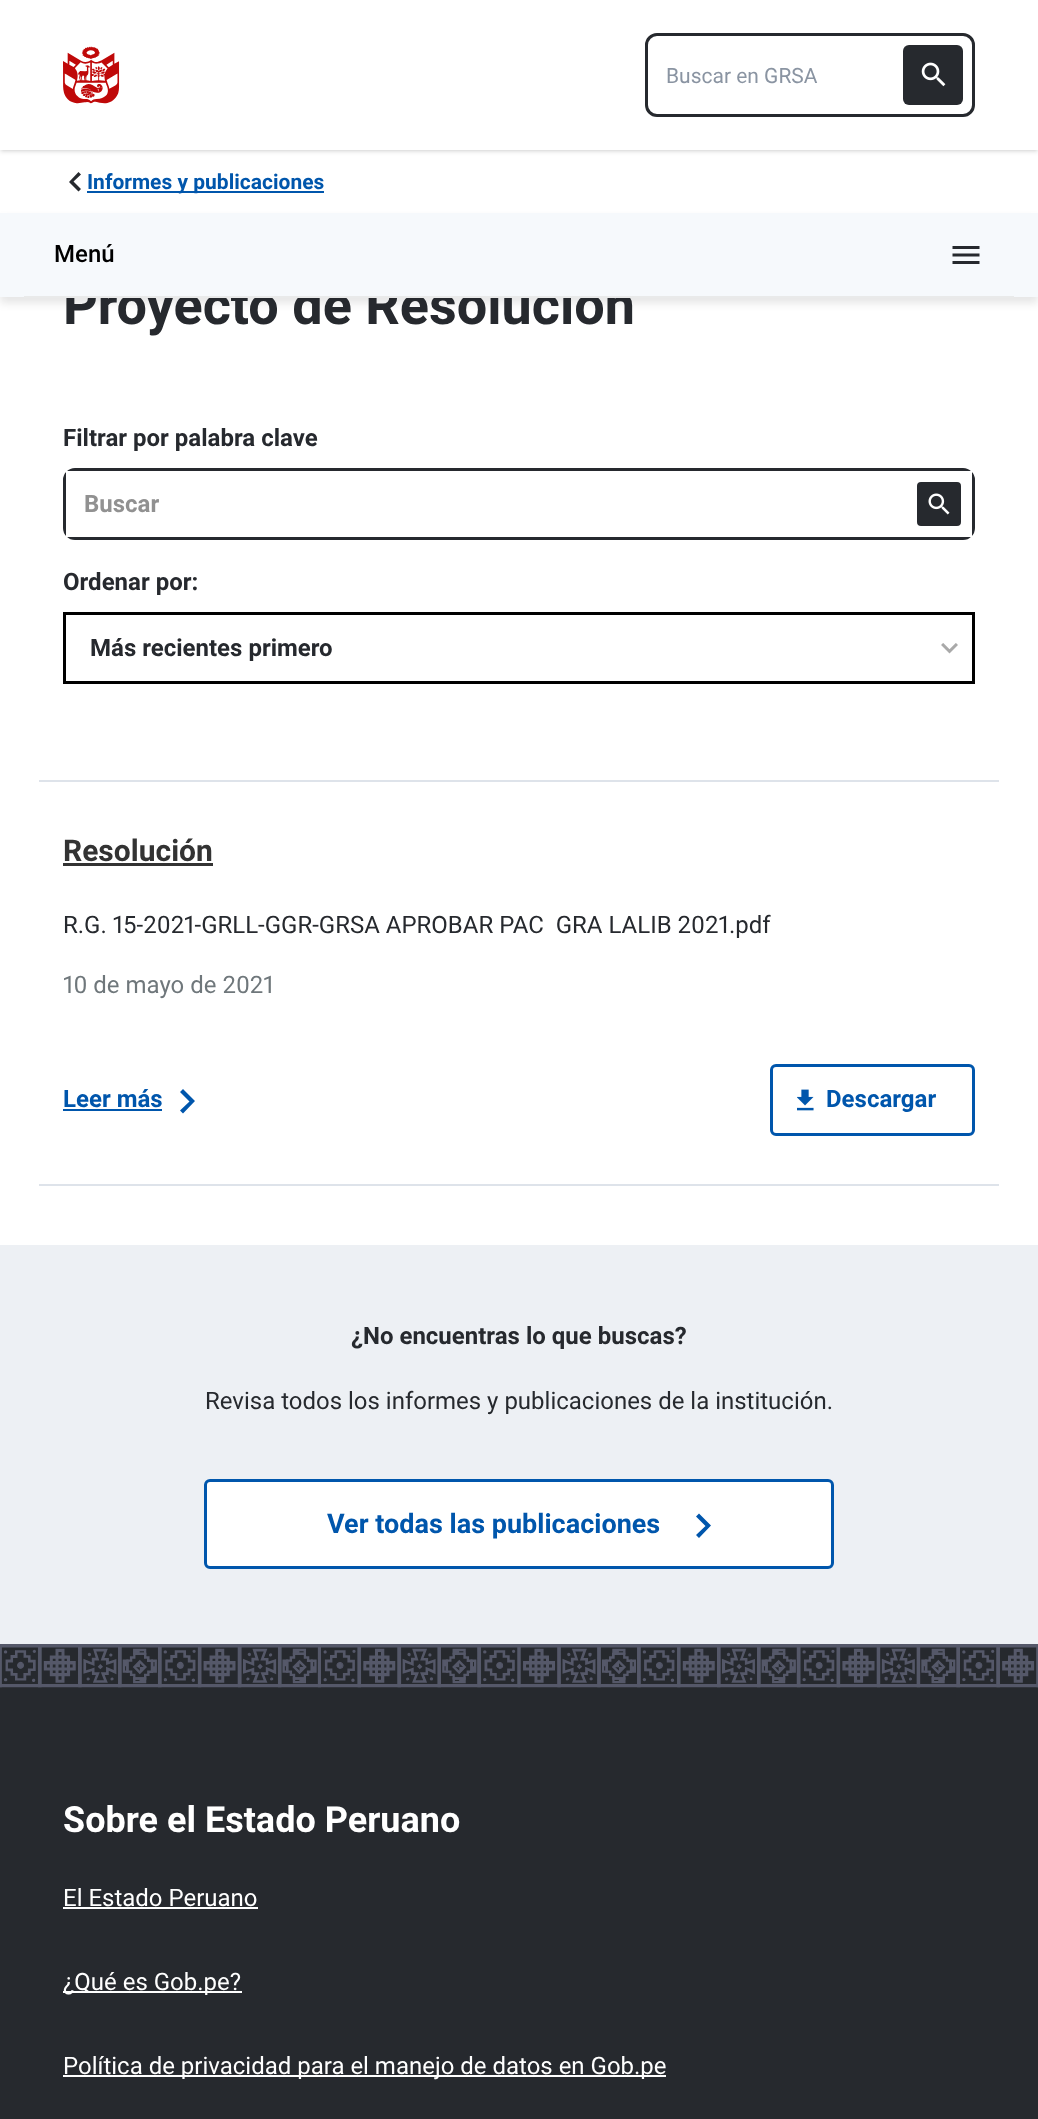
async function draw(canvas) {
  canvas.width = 1038;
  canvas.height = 2119;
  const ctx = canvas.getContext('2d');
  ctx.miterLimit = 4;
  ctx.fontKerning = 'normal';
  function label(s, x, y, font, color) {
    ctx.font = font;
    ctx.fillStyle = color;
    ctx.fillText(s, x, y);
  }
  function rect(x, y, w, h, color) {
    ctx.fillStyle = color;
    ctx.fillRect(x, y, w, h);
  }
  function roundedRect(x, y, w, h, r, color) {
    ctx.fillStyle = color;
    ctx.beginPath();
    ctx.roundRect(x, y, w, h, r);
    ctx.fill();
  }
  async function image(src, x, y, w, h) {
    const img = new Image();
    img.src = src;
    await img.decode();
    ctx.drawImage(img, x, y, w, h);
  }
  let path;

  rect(0, 0, 1038, 2119, '#fff');
  ctx.fillStyle = '#0000001a';
  ctx.filter = 'blur(1.5px)';
  ctx.beginPath();
  ctx.rect(2, 3, 1035, 147);
  ctx.fill();
  ctx.filter = 'none';
  ctx.filter = 'blur(2px)';
  ctx.beginPath();
  ctx.rect(0, 2, 1038, 150);
  ctx.fill();
  ctx.filter = 'none';
  rect(0, 0, 1038, 150, '#fff');
  await image('assets/img1.png', 63, 46, 57, 58);
  ctx.beginPath();
  ctx.roundRect(646.5, 34.5, 327, 81, 10.5);
  ctx.strokeStyle = '#26292e';
  ctx.lineWidth = 3;
  ctx.stroke();
  label('Buscar en GRSA', 666, 83, '21px Roboto', '#8a94a2');
  roundedRect(903, 45, 60, 60, 6, '#26292e');
  await image('assets/img2.png', 921, 62, 25, 25);
  path = new Path2D('M81 174.5L73.5 181.5L81 189L78.5 191.5L69 182L78.5 172Z');
  ctx.fill(path);
  rect(87, 191, 237, 2, '#0056ac');
  label('Informes y publicaciones', 87, 189, 'bold 21px Roboto', '#0056ac');
  ctx.fillStyle = '#0000001a';
  ctx.filter = 'blur(4.5px)';
  ctx.beginPath();
  ctx.rect(0, 219, 1038, 84);
  ctx.fill();
  ctx.filter = 'none';
  label('Proyecto de Resolución', 63, 324, 'bold 54px Roboto', '#26292e');
  rect(0, 213, 1038, 84, '#f6f9fc');
  rect(24, 296, 990, 2, '#e9eaea');
  label('Menú', 54, 262, '500 24px Roboto', '#000');
  await image('assets/img3.png', 952, 246, 28, 18);
  label('Filtrar por palabra clave', 63, 446, 'bold 24px Roboto', '#26292e');
  ctx.beginPath();
  ctx.roundRect(64.5, 469.5, 909, 69, 10.5);
  ctx.stroke();
  rect(66, 471, 906, 66, '#fff');
  label('Buscar', 84, 512, 'bold 24px Roboto', '#919191');
  ctx.fillStyle = '#26292e';
  ctx.beginPath();
  ctx.roundRect(916, 481, 46, 46, 5);
  ctx.fill();
  ctx.strokeStyle = '#fff';
  ctx.lineWidth = 2;
  ctx.stroke();
  await image('assets/img4.png', 928, 493, 22, 22);
  label('Ordenar por:', 63, 590, 'bold 24px Roboto', '#26292e');
  await image('assets/img5.png', 941, 643, 17, 11);
  ctx.strokeStyle = '#000';
  ctx.lineWidth = 3;
  ctx.strokeRect(64.5, 613.5, 909, 69);
  label('Más recientes primero', 90, 656, 'bold 24px Roboto', '#26292e');
  rect(39, 780, 960, 2, '#dee3ea');
  rect(39, 1184, 960, 2, '#dee3ea');
  label('Resolución', 63, 861, 'bold 30px Roboto', '#333');
  rect(63, 863, 150, 3, '#333');
  label('R.G. 15-2021-GRLL-GGR-GRSA APROBAR PAC  GRA LALIB 2021.pdf', 63, 933, '24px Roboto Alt', '#26292e');
  label('10 de mayo de 2021', 63, 993, '24px Roboto Alt', '#6f777b');
  label('Leer más', 63, 1107, 'bold 24px Roboto', '#0056ac');
  rect(63, 1109, 99, 2, '#0056ac');
  path = new Path2D('M180 1110.5L189.5 1101.5L180 1092L183 1089L195 1101L183 1113.5Z');
  ctx.fill(path);
  ctx.beginPath();
  ctx.roundRect(771.5, 1065.5, 202, 69, 4.5);
  ctx.strokeStyle = '#0056ac';
  ctx.stroke();
  await image('assets/img6.png', 797, 1089, 17, 22);
  label('Descargar', 826, 1107, 'bold 24px Roboto', '#0056ac');
  rect(0, 1245, 1038, 399, '#edf0f4');
  label('¿No encuentras lo que buscas?', 351, 1344, 'bold 24px Roboto', '#26292e');
  label('Revisa todos los informes y publicaciones de la institución.', 205, 1409, '24px Roboto', '#26292e');
  ctx.fillStyle = '#fff';
  ctx.beginPath();
  ctx.roundRect(205.5, 1480.5, 627, 87, 4.5);
  ctx.fill();
  ctx.stroke();
  label('Ver todas las publicaciones', 327, 1533, 'bold 27px Roboto', '#0056ac');
  path = new Path2D('M696 1535L705.5 1526L696 1516.5L699 1513.5L711 1525.5L699 1538Z');
  ctx.fill(path);
  rect(0, 1647, 1038, 472, '#26292e');
  await image('assets/img7.png', 0, 1644, 1038, 44);
  label('Sobre el Estado Peruano', 63, 1832, 'bold 36px Roboto', '#fff');
  label('El Estado Peruano', 63, 1906, '24px Roboto', '#fff');
  rect(63, 1907, 195, 2, '#fff');
  rect(63, 1991, 179, 2, '#fff');
  label('¿Qué es Gob.pe?', 63, 1990, '24px Roboto', '#fff');
  rect(63, 2075, 603, 2, '#fff');
  label('Política de privacidad para el manejo de datos en Gob.pe', 63, 2074, '24px Roboto', '#fff');
}

draw(document.querySelector('canvas'));
